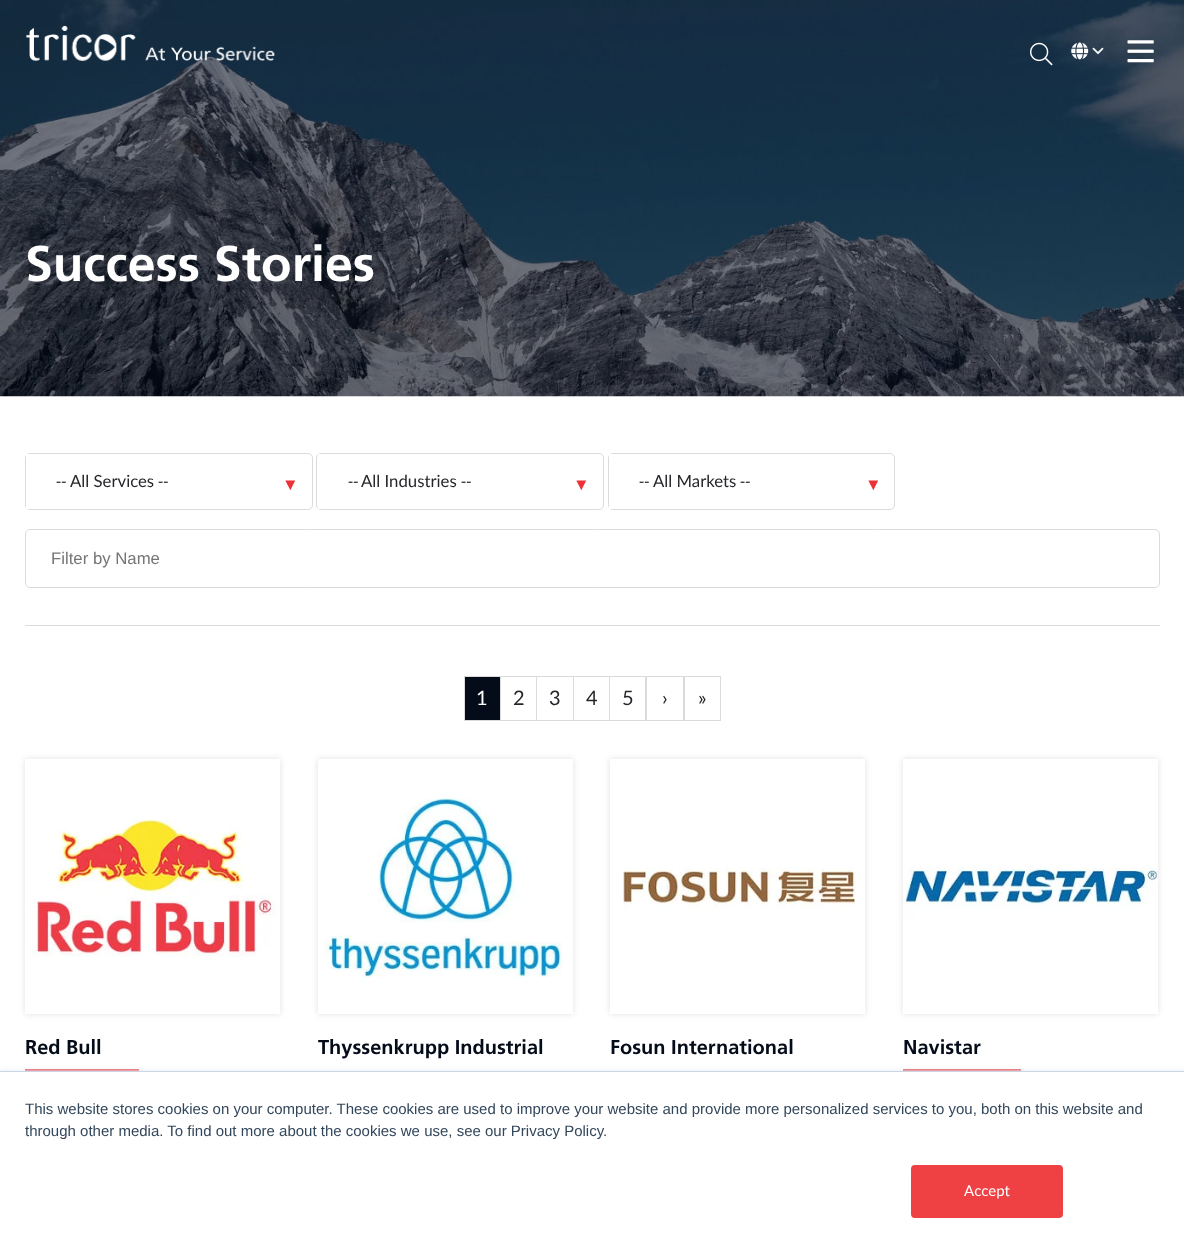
async function draw(canvas) {
  canvas.width = 1184;
  canvas.height = 1249;
  const ctx = canvas.getContext('2d');
  ctx.miterLimit = 4;
  ctx.fontKerning = 'normal';
  function label(s, x, y, font, color) {
    ctx.font = font;
    ctx.fillStyle = color;
    ctx.fillText(s, x, y);
  }
  function rect(x, y, w, h, color) {
    ctx.fillStyle = color;
    ctx.fillRect(x, y, w, h);
  }
  async function image(src, x, y, w, h) {
    const img = new Image();
    img.src = src;
    await img.decode();
    ctx.drawImage(img, x, y, w, h);
  }
  let path;

  rect(0, 0, 1184, 1249, '#fff');
  await image('assets/img6.png', 0, 0, 1184, 397);
  await image('assets/img1.png', 26, 25, 249, 36);
  await image('assets/img2.png', 1030, 42, 23, 24);
  await image('assets/img3.png', 1071, 42, 18, 18);
  await image('assets/img4.png', 1092, 47, 12, 8);
  await image('assets/img5.png', 1127, 40, 27, 23);
  label('Success Stories', 25, 281, 'bold 50px Frutiger', '#fff');
  rect(25, 625, 1135, 1, '#dbdbdb');
  ctx.beginPath();
  ctx.roundRect(25.5, 453.5, 287, 56, 4.5);
  ctx.strokeStyle = '#dbdbdb';
  ctx.stroke();
  rect(26, 454, 3, 55, '#fff');
  label('--', 56, 487, '16.75px Carlito', '#27252a');
  label('All Services', 70, 487, '16.75px Lato', '#27252a');
  label('--', 158, 487, '16.75px Carlito', '#27252a');
  label('▼', 282, 490, '16.75px Liberation Serif', '#ed3137');
  ctx.beginPath();
  ctx.roundRect(316.5, 453.5, 287, 56, 4.5);
  ctx.stroke();
  rect(318, 454, 2, 55, '#fff');
  label('--', 348, 487, '16.75px Carlito', '#27252a');
  label('All Industries', 361, 487, '16.75px Lato', '#27252a');
  label('--', 461, 487, '16.75px Carlito', '#27252a');
  label('▼', 573, 490, '16.75px Liberation Serif', '#ed3137');
  ctx.beginPath();
  ctx.roundRect(608.5, 453.5, 286, 56, 4.5);
  ctx.stroke();
  rect(609, 454, 3, 55, '#fff');
  label('--', 639, 487, '16.75px Carlito', '#27252a');
  label('All Markets', 653, 487, '16.75px Lato', '#27252a');
  label('--', 740, 487, '16.75px Carlito', '#27252a');
  label('▼', 865, 490, '16.75px Liberation Serif', '#ed3137');
  ctx.beginPath();
  ctx.roundRect(25.5, 529.5, 1134, 58, 4.5);
  ctx.stroke();
  label('Filter by Name', 51, 564, '16.75px Liberation Sans', '#757575');
  ctx.fillStyle = '#040b19';
  ctx.beginPath();
  ctx.rect(464.5, 676.5, 36, 44);
  ctx.fill();
  ctx.stroke();
  label('1', 476, 705, '20px Lato', '#fff');
  ctx.filter = 'blur(0.5px)';
  ctx.beginPath();
  ctx.rect(500, 676, 38, 45);
  ctx.fill();
  ctx.filter = 'none';
  ctx.strokeRect(500.5, 676.5, 37, 44);
  label('2', 513, 705, '20px Lato', '#27252a');
  ctx.fillStyle = '#fff';
  ctx.filter = 'blur(0.5px)';
  ctx.beginPath();
  ctx.rect(536, 676, 38, 45);
  ctx.fill();
  ctx.filter = 'none';
  ctx.strokeRect(536.5, 676.5, 37, 44);
  label('3', 549, 705, '20px Lato', '#27252a');
  ctx.fillStyle = '#fff';
  ctx.filter = 'blur(0.5px)';
  ctx.beginPath();
  ctx.rect(573, 676, 37, 45);
  ctx.fill();
  ctx.filter = 'none';
  ctx.strokeRect(573.5, 676.5, 36, 44);
  label('4', 586, 705, '20px Lato', '#27252a');
  ctx.fillStyle = '#fff';
  ctx.filter = 'blur(0.5px)';
  ctx.beginPath();
  ctx.rect(609, 676, 37, 45);
  ctx.fill();
  ctx.filter = 'none';
  ctx.strokeRect(609.5, 676.5, 36, 44);
  label('5', 622, 705, '20px Lato', '#27252a');
  ctx.strokeRect(646.5, 676.5, 37, 44);
  label('›', 662, 705, '20px Lato', '#27252a');
  ctx.strokeRect(684.5, 676.5, 36, 44);
  label('»', 698, 705, '20px Lato', '#27252a');
  ctx.save();
  path = new Path2D('M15 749H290V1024H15ZM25 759H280V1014H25Z');
  ctx.clip(path, 'evenodd');
  ctx.fillStyle = '#64646433';
  ctx.filter = 'blur(3px)';
  ctx.beginPath();
  ctx.rect(25, 759, 255, 255);
  ctx.fill();
  ctx.filter = 'none';
  ctx.restore();
  await image('assets/img7.png', 31, 819, 245, 138);
  label('Red Bull', 25, 1054, 'bold 20px Frutiger', '#040b19');
  rect(25, 1069, 114, 2, '#ed3137');
  ctx.save();
  path = new Path2D('M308 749H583V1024H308ZM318 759H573V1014H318Z');
  ctx.clip(path, 'evenodd');
  ctx.fillStyle = '#64646433';
  ctx.filter = 'blur(3px)';
  ctx.beginPath();
  ctx.rect(318, 759, 255, 255);
  ctx.fill();
  ctx.filter = 'none';
  ctx.restore();
  await image('assets/img8.png', 324, 763, 249, 247);
  label('Thyssenkrupp Industrial', 318, 1054, 'bold 20px Frutiger', '#040b19');
  ctx.save();
  path = new Path2D('M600 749H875V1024H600ZM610 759H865V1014H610Z');
  ctx.clip(path, 'evenodd');
  ctx.fillStyle = '#64646433';
  ctx.filter = 'blur(3px)';
  ctx.beginPath();
  ctx.rect(610, 759, 255, 255);
  ctx.fill();
  ctx.filter = 'none';
  ctx.restore();
  await image('assets/img9.png', 622, 867, 234, 42);
  label('Fosun International', 610, 1054, 'bold 20px Frutiger', '#040b19');
  ctx.save();
  path = new Path2D('M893 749H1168V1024H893ZM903 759H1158V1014H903Z');
  ctx.clip(path, 'evenodd');
  ctx.fillStyle = '#64646433';
  ctx.filter = 'blur(3px)';
  ctx.beginPath();
  ctx.rect(903, 759, 255, 255);
  ctx.fill();
  ctx.filter = 'none';
  ctx.restore();
  await image('assets/img10.png', 903, 763, 255, 247);
  label('Navistar', 903, 1054, 'bold 20px Frutiger', '#040b19');
  rect(903, 1069, 118, 2, '#ed3137');
  ctx.fillStyle = '#eaf0f6';
  ctx.filter = 'blur(2px)';
  ctx.beginPath();
  ctx.rect(0, 1070, 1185, 179);
  ctx.fill();
  ctx.filter = 'none';
  rect(0, 1072, 1184, 177, '#fff');
  rect(0, 1071, 1184, 1, '#cbd6e2');
  label('This website stores cookies on your computer. These cookies are used to improve your website and provide more personalized services to you, both on this website and', 25, 1114, '15px Liberation Sans', '#33475b');
  label('through other media. To find out more about the cookies we use, see our Privacy Policy.', 25, 1136, '15px Liberation Sans', '#33475b');
  ctx.fillStyle = '#ef4043';
  ctx.beginPath();
  ctx.roundRect(912.5, 1166.5, 149, 50, 2.5);
  ctx.fill();
  ctx.strokeStyle = '#ef4043';
  ctx.lineWidth = 3;
  ctx.stroke();
  label('Accept', 964, 1196, '15px Lato', '#fff');
}

draw(document.querySelector('canvas'));
